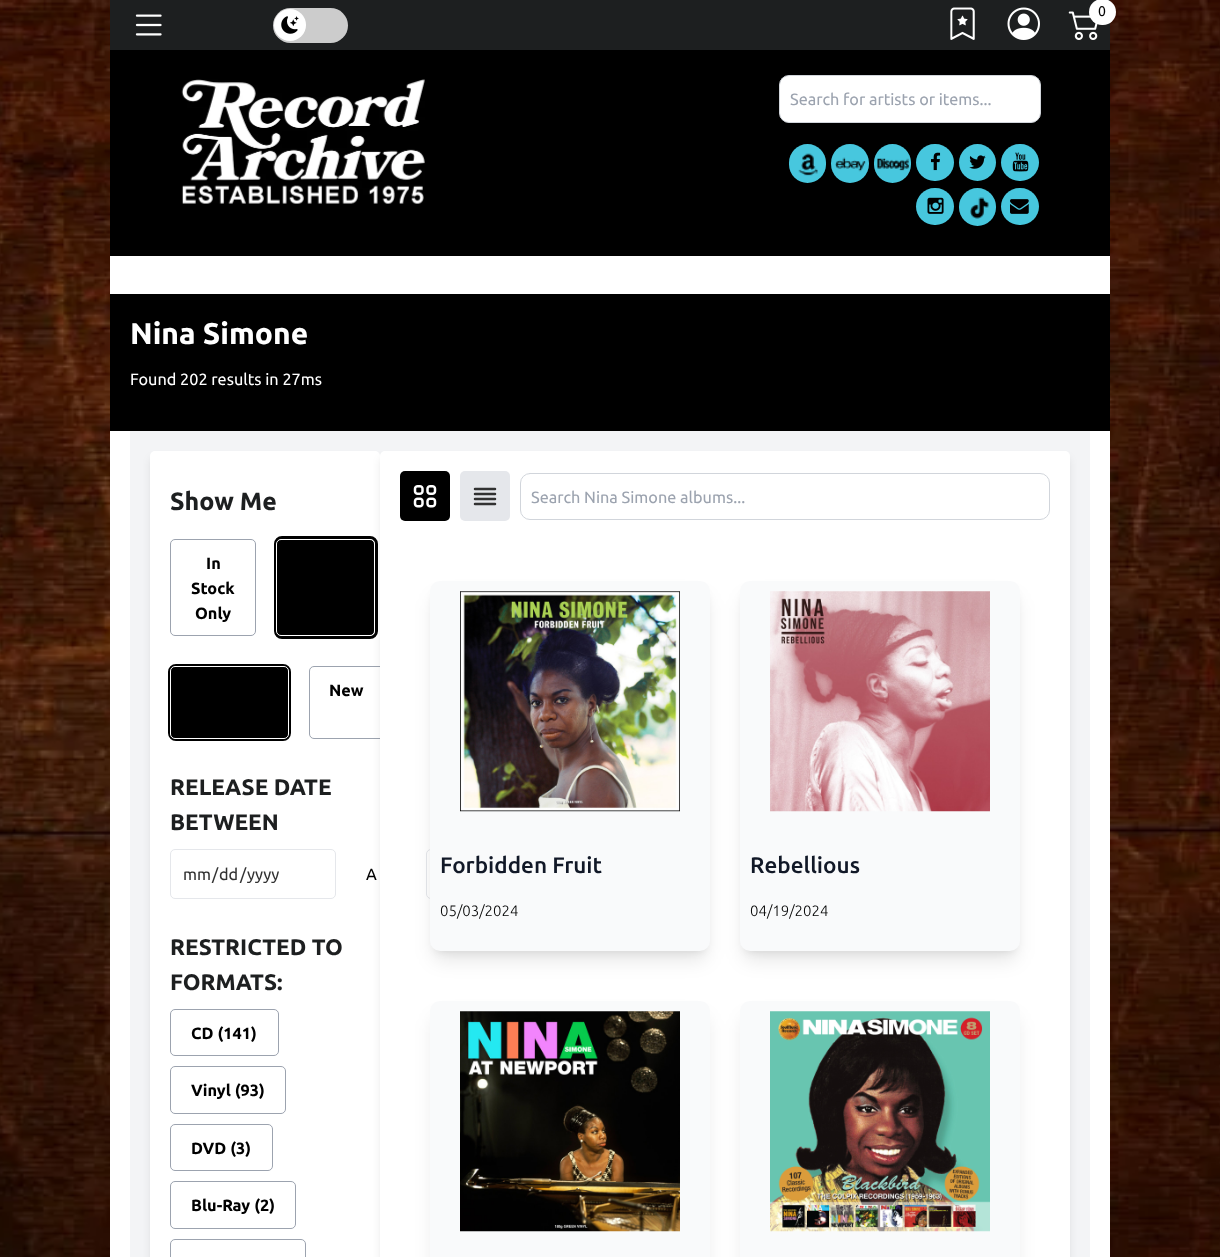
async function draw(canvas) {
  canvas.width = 1220;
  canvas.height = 1257;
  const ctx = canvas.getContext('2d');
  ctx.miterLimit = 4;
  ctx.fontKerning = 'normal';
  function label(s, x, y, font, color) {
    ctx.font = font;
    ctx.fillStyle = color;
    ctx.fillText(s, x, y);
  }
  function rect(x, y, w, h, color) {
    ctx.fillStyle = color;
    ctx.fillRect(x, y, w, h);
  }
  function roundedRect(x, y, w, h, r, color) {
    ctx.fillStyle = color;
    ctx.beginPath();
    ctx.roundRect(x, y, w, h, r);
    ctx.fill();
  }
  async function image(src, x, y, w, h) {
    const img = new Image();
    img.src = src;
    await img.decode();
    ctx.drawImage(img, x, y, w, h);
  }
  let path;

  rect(0, 0, 1220, 1257, '#fff');
  await image('assets/img1.png', 0, 0, 1220, 1257);
  rect(110, 256, 1000, 1001, '#fff');
  rect(110, 0, 1000, 50, '#1d1f20');
  await image('assets/img2.png', 135, 14, 27, 22);
  roundedRect(273, 8, 75, 35, 17.5, '#ccc');
  ctx.fillStyle = '#fff';
  ctx.beginPath();
  ctx.arc(290, 25, 16, 0, 2 * Math.PI);
  ctx.fill();
  await image('assets/img3.png', 281, 16, 18, 18);
  await image('assets/img4.png', 950, 7, 25, 33);
  await image('assets/img5.png', 1007, 7, 33, 33);
  await image('assets/img6.png', 1068, 11, 30, 29);
  roundedRect(1089, -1, 27, 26, 13, '#fff');
  label('0', 1098, 16, '14px Ubuntu', '#000');
  rect(110, 50, 1000, 206, '#000');
  await image('assets/img7.png', 181, 79, 244, 125);
  ctx.fillStyle = '#fff';
  ctx.beginPath();
  ctx.roundRect(779.5, 75.5, 261, 47, 9.5);
  ctx.fill();
  ctx.strokeStyle = '#d1d5db';
  ctx.stroke();
  label('Search for artists or items...', 790, 105, '16.25px Ubuntu', '#9ca3af');
  roundedRect(789, 144, 37, 39, 18.5, '#47c7de');
  await image('assets/img8.png', 798, 153, 20, 23);
  roundedRect(831, 144, 38, 39, 19, '#47c7de');
  await image('assets/img9.png', 835, 157, 31, 15);
  roundedRect(874, 144, 37, 39, 18.5, '#47c7de');
  await image('assets/img10.png', 877, 158, 32, 13);
  roundedRect(916, 144, 38, 37, 18.5, '#47c7de');
  await image('assets/img11.png', 931, 152, 10, 19);
  ctx.beginPath();
  ctx.arc(977.5, 162.5, 18.5, 0, 2 * Math.PI);
  ctx.fill();
  await image('assets/img12.png', 969, 155, 17, 14);
  roundedRect(1001, 144, 38, 37, 18.5, '#47c7de');
  await image('assets/img13.png', 1012, 152, 17, 20);
  roundedRect(916, 188, 38, 37, 18.5, '#47c7de');
  await image('assets/img14.png', 927, 197, 17, 17);
  roundedRect(959, 188, 37, 38, 18.5, '#47c7de');
  await image('assets/img15.png', 970, 197, 19, 22);
  roundedRect(1001, 188, 38, 37, 18.5, '#47c7de');
  await image('assets/img16.png', 1010, 199, 19, 15);
  rect(110, 294, 1000, 137, '#000');
  label('Nina Simone', 130, 344, 'bold 30px Ubuntu', '#fff');
  label('Found 202 results in 27ms', 130, 385, '16.25px Ubuntu', '#fff');
  rect(130, 431, 960, 826, '#f3f4f6');
  ctx.fillStyle = '#0000001a';
  ctx.filter = 'blur(4px)';
  ctx.beginPath();
  ctx.roundRect(151, 458, 228, 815, 4);
  ctx.fill();
  ctx.filter = 'none';
  roundedRect(150, 451, 230, 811, 5, '#fff');
  label('Show Me', 170, 510, 'bold 25px Ubuntu', '#1d1f20');
  ctx.beginPath();
  ctx.roundRect(170.5, 539.5, 85, 96, 4.5);
  ctx.strokeStyle = '#9ca3af';
  ctx.stroke();
  label('In', 206, 569, 'bold 16.25px Ubuntu', '#000');
  label('Stock', 191, 594, 'bold 16.25px Ubuntu', '#000');
  label('Only', 195, 619, 'bold 16.25px Ubuntu', '#000');
  ctx.beginPath();
  ctx.roundRect(275.5, 537.5, 101, 100, 6.5);
  ctx.strokeStyle = '#000';
  ctx.lineWidth = 3;
  ctx.stroke();
  ctx.beginPath();
  ctx.roundRect(276.5, 539.5, 98, 96, 4.5);
  ctx.fill();
  ctx.strokeStyle = '#fff';
  ctx.lineWidth = 1;
  ctx.stroke();
  ctx.beginPath();
  ctx.roundRect(169.5, 665.5, 120, 74, 6.5);
  ctx.strokeStyle = '#000';
  ctx.lineWidth = 3;
  ctx.stroke();
  ctx.beginPath();
  ctx.roundRect(170.5, 666.5, 118, 72, 4.5);
  ctx.fill();
  ctx.strokeStyle = '#fff';
  ctx.lineWidth = 1;
  ctx.stroke();
  ctx.fillStyle = '#fff';
  ctx.beginPath();
  ctx.roundRect(309.5, 666.5, 75, 72, 4.5);
  ctx.fill();
  ctx.strokeStyle = '#9ca3af';
  ctx.stroke();
  label('New', 329, 696, 'bold 16.25px Ubuntu', '#000');
  label('RELEASE DATE', 170, 795, 'bold 22.5px Ubuntu', '#1d1f20');
  label('BETWEEN', 170, 830, 'bold 22.5px Ubuntu', '#1d1f20');
  ctx.beginPath();
  ctx.roundRect(170.5, 849.5, 165, 49, 4.5);
  ctx.strokeStyle = '#e5e7eb';
  ctx.stroke();
  label('mm', 183, 880, '16.25px Ubuntu', '#323232');
  label('/', 212, 880, '16.25px Ubuntu', '#323232');
  label('dd', 219, 880, '16.25px Ubuntu', '#323232');
  label('/', 240, 880, '16.25px Ubuntu', '#323232');
  label('yyyy', 247, 880, '16.25px Ubuntu', '#323232');
  label('A', 366, 880, '16.25px Ubuntu', '#000');
  ctx.fillStyle = '#0000001a';
  ctx.filter = 'blur(4px)';
  ctx.beginPath();
  ctx.roundRect(381, 458, 688, 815, 4);
  ctx.fill();
  ctx.filter = 'none';
  roundedRect(380, 451, 690, 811, 5, '#fff');
  ctx.beginPath();
  ctx.roundRect(426.5, 849.5, 166, 49, 4.5);
  ctx.stroke();
  label('RESTRICTED TO', 170, 955, 'bold 22.5px Ubuntu', '#1d1f20');
  label('FORMATS:', 170, 990, 'bold 22.5px Ubuntu', '#1d1f20');
  ctx.beginPath();
  ctx.roundRect(170.5, 1009.5, 108, 46, 4.5);
  ctx.strokeStyle = '#9ca3af';
  ctx.stroke();
  label('CD (141)', 191, 1039, 'bold 16.25px Ubuntu', '#000');
  ctx.beginPath();
  ctx.roundRect(170.5, 1066.5, 115, 47, 4.5);
  ctx.stroke();
  label('Vinyl (93)', 191, 1096, 'bold 16.25px Ubuntu', '#000');
  ctx.beginPath();
  ctx.roundRect(170.5, 1124.5, 102, 46, 4.5);
  ctx.stroke();
  label('DVD (3)', 191, 1154, 'bold 16.25px Ubuntu', '#000');
  ctx.beginPath();
  ctx.roundRect(170.5, 1181.5, 125, 47, 4.5);
  ctx.stroke();
  label('Blu-Ray (2)', 191, 1211, 'bold 16.25px Ubuntu', '#000');
  ctx.beginPath();
  ctx.roundRect(170.5, 1239.5, 135, 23, 4.5);
  ctx.stroke();
  roundedRect(400, 471, 50, 50, 5, '#000');
  await image('assets/img17.png', 413, 485, 24, 23);
  roundedRect(460, 471, 50, 50, 5, '#e5e7eb');
  path = new Path2D('M475 489H495M475 494H495M475 499H495M475 504H495');
  ctx.strokeStyle = '#323232';
  ctx.lineWidth = 2.5;
  ctx.lineCap = 'round';
  ctx.lineJoin = 'round';
  ctx.stroke(path);
  ctx.beginPath();
  ctx.roundRect(520.5, 473.5, 529, 46, 9.5);
  ctx.strokeStyle = '#d1d5db';
  ctx.lineWidth = 1;
  ctx.lineJoin = 'miter';
  ctx.stroke();
  label('Search Nina Simone albums...', 531, 503, '16.25px Ubuntu', '#9ca3af');
  ctx.fillStyle = '#0000001a';
  ctx.filter = 'blur(4px)';
  ctx.beginPath();
  ctx.roundRect(435, 591, 270, 360, 5);
  ctx.fill();
  ctx.filter = 'none';
  ctx.filter = 'blur(9.5px)';
  ctx.beginPath();
  ctx.roundRect(434, 598, 272, 362, 6);
  ctx.fill();
  ctx.filter = 'none';
  roundedRect(430, 581, 280, 370, 10, '#f9fafb');
  await image('assets/img18.png', 460, 591, 220, 221);
  label('Forbidden Fruit', 440, 873, '500 22.5px Ubuntu', '#111827');
  label('05/03/2024', 440, 916, '300 15px Ubuntu', '#000');
  ctx.fillStyle = '#0000001a';
  ctx.filter = 'blur(4px)';
  ctx.beginPath();
  ctx.roundRect(745, 591, 270, 360, 5);
  ctx.fill();
  ctx.filter = 'none';
  ctx.filter = 'blur(9.5px)';
  ctx.beginPath();
  ctx.roundRect(744, 598, 272, 362, 6);
  ctx.fill();
  ctx.filter = 'none';
  roundedRect(740, 581, 280, 370, 10, '#f9fafb');
  await image('assets/img19.png', 770, 591, 220, 221);
  label('Rebellious', 750, 873, '500 22.5px Ubuntu', '#111827');
  label('04/19/2024', 750, 916, '300 15px Ubuntu', '#000');
  ctx.fillStyle = '#0000001a';
  ctx.filter = 'blur(9.5px)';
  ctx.beginPath();
  ctx.roundRect(434, 1018, 272, 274, 6);
  ctx.fill();
  ctx.filter = 'none';
  roundedRect(430, 1001, 280, 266, 10, '#f9fafb');
  await image('assets/img20.png', 460, 1011, 220, 221);
  ctx.fillStyle = '#0000001a';
  ctx.filter = 'blur(9.5px)';
  ctx.beginPath();
  ctx.roundRect(744, 1018, 272, 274, 6);
  ctx.fill();
  ctx.filter = 'none';
  roundedRect(740, 1001, 280, 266, 10, '#f9fafb');
  await image('assets/img21.png', 770, 1011, 220, 221);
}

draw(document.querySelector('canvas'));
